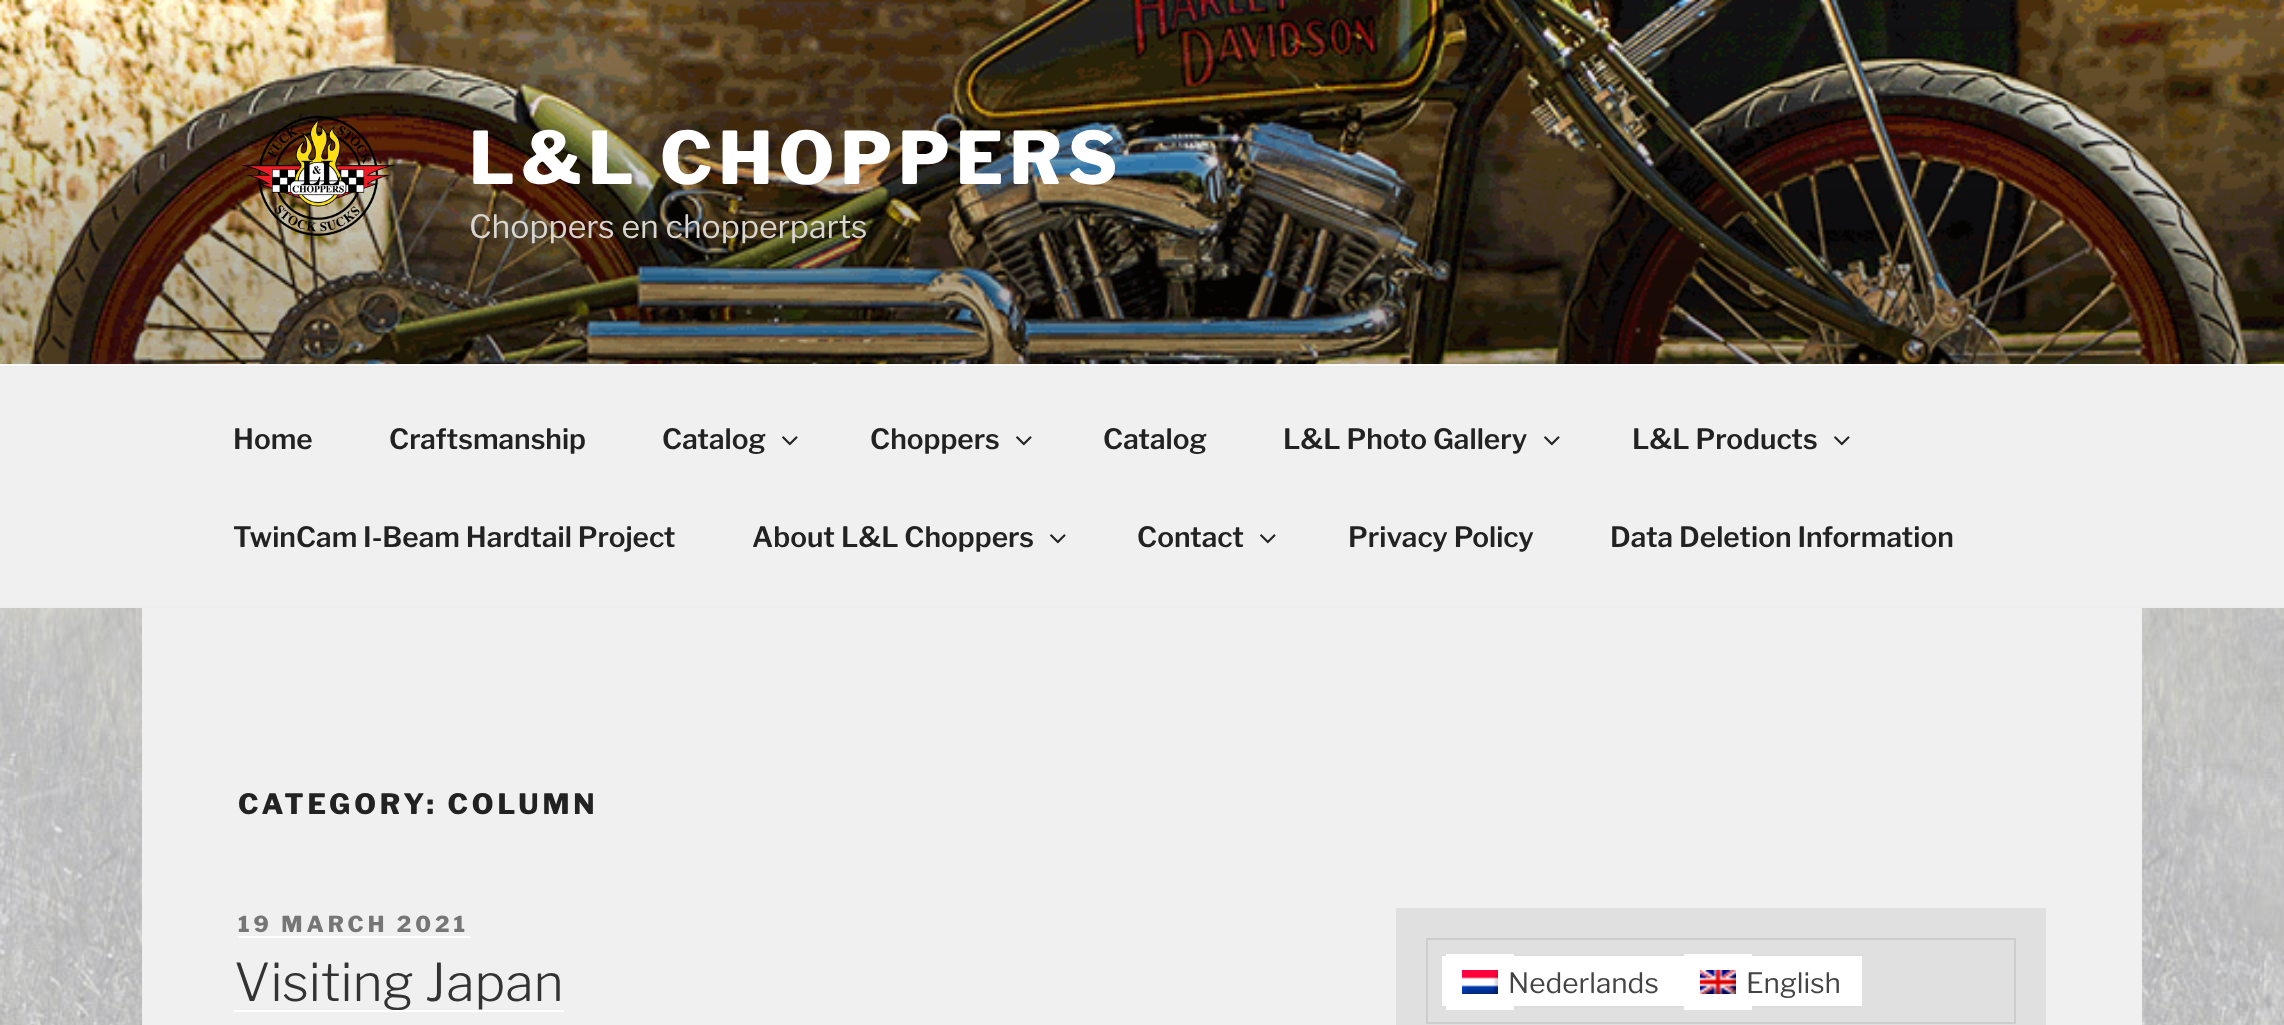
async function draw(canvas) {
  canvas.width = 2284;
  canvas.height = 1025;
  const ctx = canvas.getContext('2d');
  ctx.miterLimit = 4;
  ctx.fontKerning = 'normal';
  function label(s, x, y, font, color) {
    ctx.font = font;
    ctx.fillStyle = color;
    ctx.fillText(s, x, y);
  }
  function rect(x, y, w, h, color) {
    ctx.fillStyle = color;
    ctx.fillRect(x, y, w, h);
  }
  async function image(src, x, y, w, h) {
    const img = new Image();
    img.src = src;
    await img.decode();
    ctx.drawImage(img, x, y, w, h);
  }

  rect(0, 0, 2284, 1025, '#fff');
  await image('assets/img1.png', 0, 608, 2284, 417);
  rect(0, 364, 2284, 2, '#fafafa');
  await image('assets/img2.png', 0, 0, 2284, 364);
  await image('assets/img3.png', 242, 115, 153, 121);
  ctx.letterSpacing = '5.75px';
  label('L&L CHOPPERS', 469, 184, '100 72px Libre Franklin', '#fff');
  ctx.letterSpacing = '0px';
  label('Choppers en chopperparts', 469, 238, '100 32px "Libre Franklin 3"', '#d9d6d1');
  rect(0, 368, 2284, 238, '#f0f0f0');
  rect(0, 366, 2284, 2, '#eee');
  rect(0, 606, 2284, 2, '#eee');
  label('Home', 233, 449, '100 28px "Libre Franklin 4"', '#222');
  label('Craftsmanship', 389, 449, '100 28px "Libre Franklin 4"', '#222');
  label('Catalog', 662, 449, '100 28px "Libre Franklin 4"', '#222');
  await image('assets/img4.png', 782, 436, 16, 10);
  label('Choppers', 870, 449, '100 28px "Libre Franklin 4"', '#222');
  await image('assets/img4.png', 1016, 436, 16, 10);
  label('Catalog', 1103, 449, '100 28px "Libre Franklin 4"', '#222');
  label('L&L Photo Gallery', 1283, 449, '100 28px "Libre Franklin 4"', '#222');
  await image('assets/img4.png', 1544, 436, 16, 10);
  label('L&L Products', 1632, 449, '100 28px "Libre Franklin 4"', '#222');
  await image('assets/img4.png', 1834, 436, 16, 10);
  label('TwinCam I-Beam Hardtail Project', 233, 547, '100 28px "Libre Franklin 4"', '#222');
  label('About L&L Choppers', 752, 547, '100 28px "Libre Franklin 4"', '#222');
  await image('assets/img4.png', 1050, 534, 16, 10);
  label('Contact', 1137, 547, '100 28px "Libre Franklin 4"', '#222');
  await image('assets/img4.png', 1260, 534, 16, 10);
  label('Privacy Policy', 1348, 547, '100 28px "Libre Franklin 4"', '#222');
  label('Data Deletion Information', 1610, 547, '100 28px "Libre Franklin 4"', '#222');
  rect(142, 608, 2000, 417, '#f0f0f0');
  ctx.letterSpacing = '3.9px';
  label('CATEGORY: COLUMN', 238, 814, '100 28px Libre Franklin', '#222');
  ctx.letterSpacing = '4px';
  label('19 MARCH 2021', 238, 932, '100 22px Libre Franklin', '#767676');
  rect(238, 936, 232, 2, '#fff');
  rect(234, 1010, 330, 2, '#fff');
  ctx.letterSpacing = '0px';
  label('Visiting Japan', 234, 1001, '100 52px "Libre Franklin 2"', '#333');
  rect(1396, 908, 650, 117, '#e0e0e0');
  ctx.strokeStyle = '#cdcdcd';
  ctx.lineWidth = 2;
  ctx.strokeRect(1427, 939, 588, 84);
  rect(1442, 954, 420, 2, '#ddd');
  rect(1442, 1006, 420, 2, '#ddd');
  rect(1442, 956, 420, 50, '#fff');
  ctx.strokeStyle = '#fff';
  ctx.lineWidth = 16;
  ctx.strokeRect(1454, 962, 52, 40);
  await image('assets/img5.png', 1462, 970, 36, 24);
  label('Nederlands', 1508, 993, '100 28px "Libre Franklin 3"', '#444');
  ctx.strokeRect(1692, 962, 52, 40);
  await image('assets/img6.png', 1700, 970, 36, 24);
  label('English', 1746, 993, '100 28px "Libre Franklin 3"', '#444');
}

draw(document.querySelector('canvas'));
